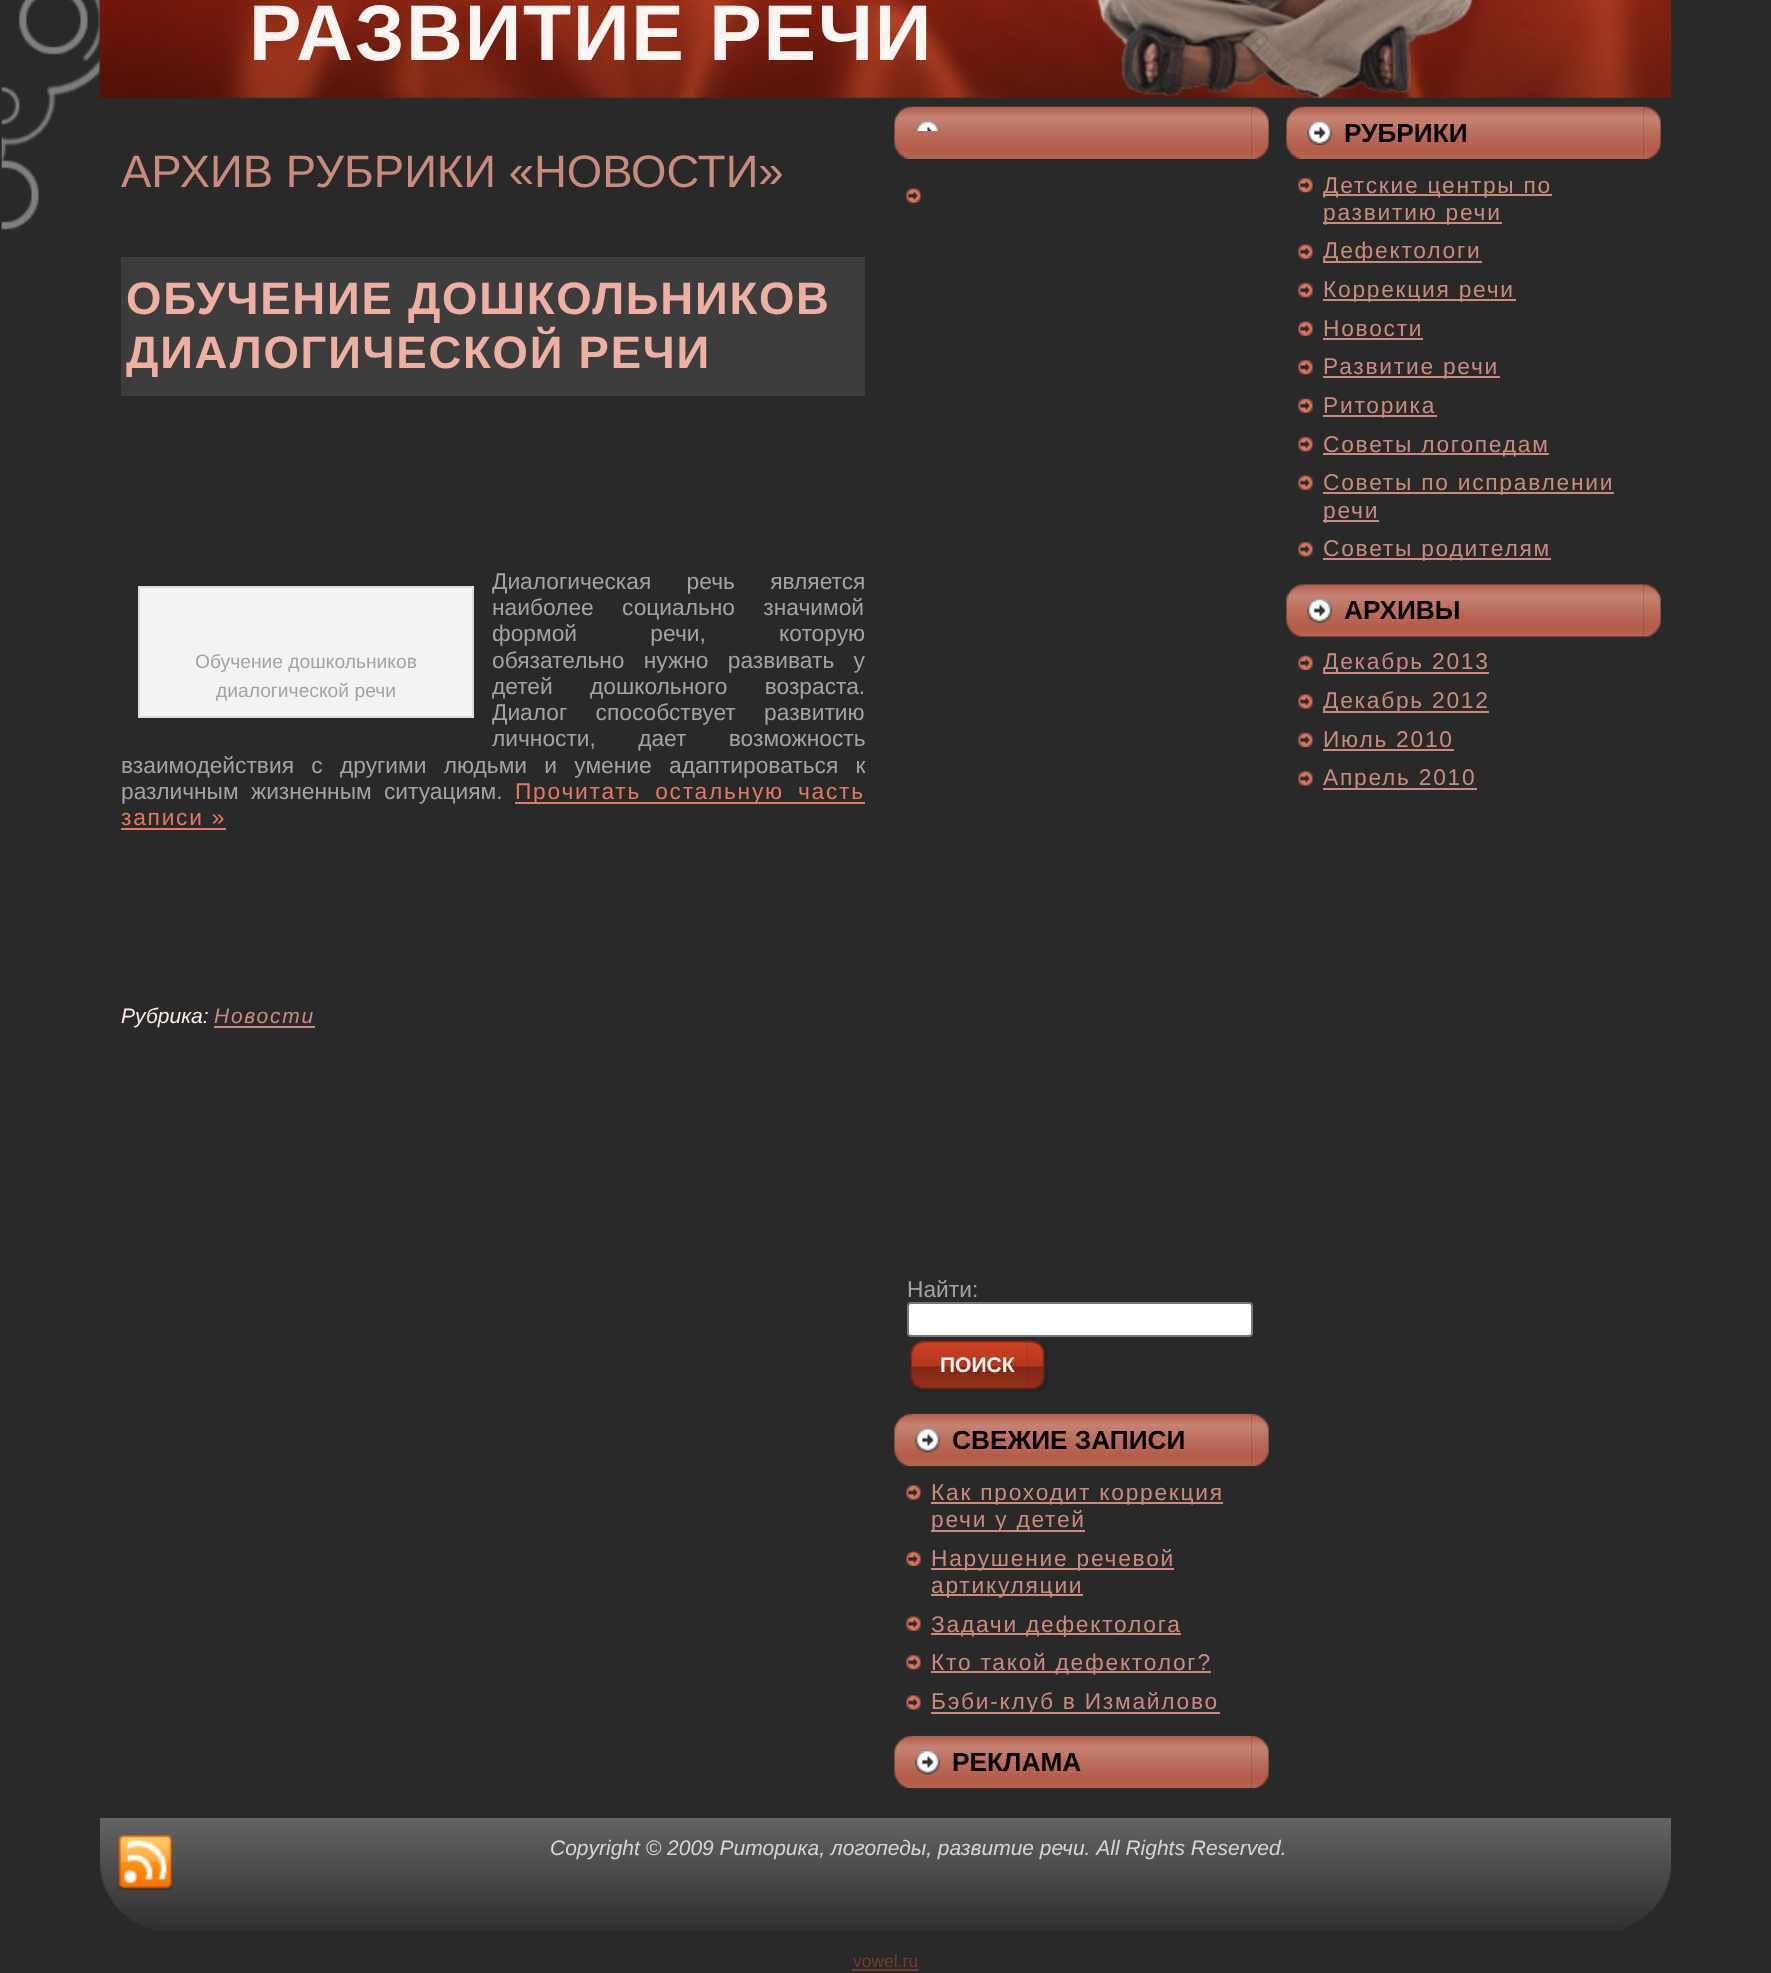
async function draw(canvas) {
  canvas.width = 1771;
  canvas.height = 1973;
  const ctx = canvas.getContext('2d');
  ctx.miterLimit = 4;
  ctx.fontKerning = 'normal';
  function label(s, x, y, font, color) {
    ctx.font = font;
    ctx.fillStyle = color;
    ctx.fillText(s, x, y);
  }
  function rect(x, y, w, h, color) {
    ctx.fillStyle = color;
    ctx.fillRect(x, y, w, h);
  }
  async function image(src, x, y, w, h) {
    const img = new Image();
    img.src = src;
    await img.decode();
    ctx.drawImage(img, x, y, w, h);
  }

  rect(0, 0, 1771, 1973, '#292929');
  await image('assets/img1.png', 1, 0, 99, 230);
  await image('assets/img2.png', 98, 0, 2, 74);
  await image('assets/img3.png', 99, 0, 1573, 98);
  ctx.letterSpacing = '1.75px';
  label('РАЗВИТИЕ РЕЧИ', 249, 60, 'bold 78.75px Liberation Sans', '#fbf5f4');
  ctx.letterSpacing = '0px';
  label('АРХИВ РУБРИКИ «НОВОСТИ»', 121, 187, '45.5px Liberation Sans', '#ca8b7d');
  rect(121, 257, 744, 139, '#3d3d3d');
  ctx.letterSpacing = '1.75px';
  label('ОБУЧЕНИЕ ДОШКОЛЬНИКОВ', 126, 314, 'bold 45.5px Liberation Sans', '#efb0a4');
  label('ДИАЛОГИЧЕСКОЙ РЕЧИ', 126, 368, 'bold 45.5px Liberation Sans', '#efb0a4');
  ctx.letterSpacing = '0px';
  ctx.wordSpacing = '29px';
  label('Диалогическая речь является', 492, 589, '22.75px Liberation Sans', '#a3a3a3');
  ctx.wordSpacing = '22px';
  label('наиболее социально значимой', 492, 615, '22.75px Liberation Sans', '#a3a3a3');
  ctx.wordSpacing = '67px';
  label('формой речи, которую', 492, 641, '22.75px Liberation Sans', '#a3a3a3');
  ctx.wordSpacing = '13px';
  label('обязательно нужно развивать у', 492, 668, '22.75px Liberation Sans', '#a3a3a3');
  ctx.wordSpacing = '31px';
  label('детей дошкольного возраста.', 492, 694, '22.75px Liberation Sans', '#a3a3a3');
  ctx.wordSpacing = '22px';
  label('Диалог способствует развитию', 492, 720, '22.75px Liberation Sans', '#a3a3a3');
  ctx.wordSpacing = '36px';
  label('личности, дает возможность', 492, 746, '22.75px Liberation Sans', '#a3a3a3');
  ctx.wordSpacing = '11px';
  label('взаимодействия с другими людьми и умение адаптироваться к', 121, 773, '22.75px Liberation Sans', '#a3a3a3');
  ctx.wordSpacing = '6px';
  label('различным жизненным ситуациям.', 121, 799, '22.75px Liberation Sans', '#a3a3a3');
  rect(515, 802, 350, 2, '#e37863');
  ctx.letterSpacing = '1.75px';
  label('Прочитать остальную часть', 515, 799, '22.75px Liberation Sans', '#e37863');
  ctx.wordSpacing = '0px';
  label('записи »', 121, 825, '22.75px Liberation Sans', '#e37863');
  rect(121, 828, 105, 2, '#e37863');
  ctx.fillStyle = '#f3f3f3';
  ctx.beginPath();
  ctx.rect(139, 587, 334, 130);
  ctx.fill();
  ctx.strokeStyle = '#ddd';
  ctx.lineWidth = 2;
  ctx.stroke();
  ctx.letterSpacing = '0px';
  label('Обучение дошкольников', 195, 668, '19.25px Liberation Sans', '#a3a3a3');
  label('диалогической речи', 216, 697, '19.25px Liberation Sans', '#a3a3a3');
  label('Рубрика:', 121, 1023, 'italic 21px Liberation Sans', '#fae9e5');
  ctx.letterSpacing = '1.75px';
  label('Новости', 214, 1023, 'italic 21px Liberation Sans', '#ca8b7d');
  rect(214, 1026, 101, 2, '#ca8b7d');
  await image('assets/img4.png', 1286, 106, 358, 53);
  await image('assets/img5.png', 1643, 106, 18, 53);
  await image('assets/img6.png', 1307, 120, 25, 25);
  ctx.letterSpacing = '0px';
  label('РУБРИКИ', 1344, 142, 'bold 26.25px Liberation Sans', '#000');
  await image('assets/img7.png', 1298, 177, 15, 16);
  rect(1323, 194, 229, 2, '#ca8b7d');
  ctx.letterSpacing = '1.75px';
  label('Детские центры по', 1323, 193, '22.75px Liberation Sans', '#ca8b7d');
  rect(1323, 222, 179, 2, '#ca8b7d');
  label('развитию речи', 1323, 220, '22.75px Liberation Sans', '#ca8b7d');
  await image('assets/img8.png', 1298, 244, 15, 15);
  rect(1323, 261, 159, 2, '#ca8b7d');
  label('Дефектологи', 1323, 258, '22.75px Liberation Sans', '#ca8b7d');
  await image('assets/img7.png', 1298, 282, 15, 16);
  rect(1323, 299, 193, 2, '#ca8b7d');
  label('Коррекция речи', 1323, 297, '22.75px Liberation Sans', '#ca8b7d');
  await image('assets/img8.png', 1298, 321, 15, 15);
  label('Новости', 1323, 336, '22.75px Liberation Sans', '#ca8b7d');
  rect(1323, 338, 100, 2, '#ca8b7d');
  await image('assets/img7.png', 1298, 359, 15, 16);
  rect(1323, 376, 177, 2, '#ca8b7d');
  label('Развитие речи', 1323, 374, '22.75px Liberation Sans', '#ca8b7d');
  await image('assets/img8.png', 1298, 398, 15, 15);
  rect(1323, 415, 114, 2, '#ca8b7d');
  label('Риторика', 1323, 413, '22.75px Liberation Sans', '#ca8b7d');
  await image('assets/img7.png', 1298, 436, 15, 16);
  rect(1323, 453, 226, 2, '#ca8b7d');
  label('Советы логопедам', 1323, 452, '22.75px Liberation Sans', '#ca8b7d');
  await image('assets/img8.png', 1298, 475, 15, 15);
  rect(1323, 492, 291, 2, '#ca8b7d');
  label('Советы по исправлении', 1323, 490, '22.75px Liberation Sans', '#ca8b7d');
  rect(1323, 520, 56, 2, '#ca8b7d');
  label('речи', 1323, 518, '22.75px Liberation Sans', '#ca8b7d');
  await image('assets/img7.png', 1298, 541, 15, 16);
  rect(1323, 558, 228, 2, '#ca8b7d');
  label('Советы родителям', 1323, 556, '22.75px Liberation Sans', '#ca8b7d');
  await image('assets/img9.png', 1286, 584, 358, 53);
  await image('assets/img10.png', 1643, 584, 18, 53);
  await image('assets/img11.png', 1307, 598, 25, 25);
  ctx.letterSpacing = '0px';
  label('АРХИВЫ', 1344, 619, 'bold 26.25px Liberation Sans', '#000');
  await image('assets/img12.png', 1298, 655, 15, 15);
  rect(1323, 672, 166, 2, '#ca8b7d');
  ctx.letterSpacing = '1.75px';
  label('Декабрь 2013', 1323, 669, '22.75px Liberation Sans', '#ca8b7d');
  await image('assets/img13.png', 1298, 694, 15, 15);
  rect(1323, 711, 166, 2, '#ca8b7d');
  label('Декабрь 2012', 1323, 708, '22.75px Liberation Sans', '#ca8b7d');
  await image('assets/img12.png', 1298, 732, 15, 15);
  label('Июль 2010', 1323, 747, '22.75px Liberation Sans', '#ca8b7d');
  rect(1323, 749, 131, 2, '#ca8b7d');
  await image('assets/img13.png', 1298, 771, 15, 15);
  rect(1323, 788, 154, 2, '#ca8b7d');
  label('Апрель 2010', 1323, 785, '22.75px Liberation Sans', '#ca8b7d');
  await image('assets/img14.png', 894, 106, 358, 53);
  await image('assets/img5.png', 1251, 106, 18, 53);
  await image('assets/img15.png', 915, 120, 25, 11);
  await image('assets/img8.png', 906, 188, 15, 15);
  ctx.letterSpacing = '0px';
  label('Найти:', 907, 1297, '22.75px Liberation Sans', '#a3a3a3');
  ctx.fillStyle = '#fff';
  ctx.beginPath();
  ctx.roundRect(908, 1303, 344, 33, 3);
  ctx.fill();
  ctx.strokeStyle = '#767676';
  ctx.stroke();
  await image('assets/img17.png', 1027, 1339, 20, 53);
  await image('assets/img16.png', 909, 1340, 119, 52);
  label('ПОИСК', 940, 1372, 'bold 21px Liberation Sans', '#f5f5f5');
  await image('assets/img18.png', 894, 1413, 358, 54);
  await image('assets/img19.png', 1251, 1413, 18, 54);
  await image('assets/img20.png', 915, 1427, 25, 26);
  label('СВЕЖИЕ ЗАПИСИ', 952, 1449, 'bold 26.25px Liberation Sans', '#000');
  await image('assets/img13.png', 906, 1485, 15, 15);
  rect(931, 1502, 292, 2, '#ca8b7d');
  ctx.letterSpacing = '1.75px';
  label('Как проходит коррекция', 931, 1500, '22.75px Liberation Sans', '#ca8b7d');
  rect(931, 1530, 154, 2, '#ca8b7d');
  label('речи у детей', 931, 1527, '22.75px Liberation Sans', '#ca8b7d');
  await image('assets/img12.png', 906, 1551, 15, 15);
  rect(931, 1568, 243, 2, '#ca8b7d');
  label('Нарушение речевой', 931, 1566, '22.75px Liberation Sans', '#ca8b7d');
  rect(931, 1594, 152, 2, '#ca8b7d');
  label('артикуляции', 931, 1593, '22.75px Liberation Sans', '#ca8b7d');
  await image('assets/img8.png', 906, 1616, 15, 15);
  rect(931, 1633, 250, 2, '#ca8b7d');
  label('Задачи дефектолога', 931, 1632, '22.75px Liberation Sans', '#ca8b7d');
  await image('assets/img7.png', 906, 1654, 15, 16);
  rect(931, 1671, 280, 2, '#ca8b7d');
  label('Кто такой дефектолог?', 931, 1670, '22.75px Liberation Sans', '#ca8b7d');
  await image('assets/img13.png', 906, 1695, 15, 15);
  rect(931, 1712, 289, 2, '#ca8b7d');
  label('Бэби-клуб в Измайлово', 931, 1709, '22.75px Liberation Sans', '#ca8b7d');
  await image('assets/img18.png', 894, 1735, 358, 54);
  await image('assets/img19.png', 1251, 1735, 18, 54);
  await image('assets/img20.png', 915, 1749, 25, 26);
  ctx.letterSpacing = '0px';
  label('РЕКЛАМА', 952, 1771, 'bold 26.25px Liberation Sans', '#000');
  await image('assets/img21.png', 100, 1818, 1571, 113);
  await image('assets/img22.png', 117, 1835, 56, 55);
  label('Copyright © 2009 Риторика, логопеды, развитие речи. All Rights Reserved.', 550, 1855, 'italic 21px Liberation Sans', '#d6d6d6');
  label('vowel.ru', 853, 1967, '17.5px Liberation Sans', '#743c2f');
  rect(852, 1969, 67, 2, '#743c2f');
}

draw(document.querySelector('canvas'));
